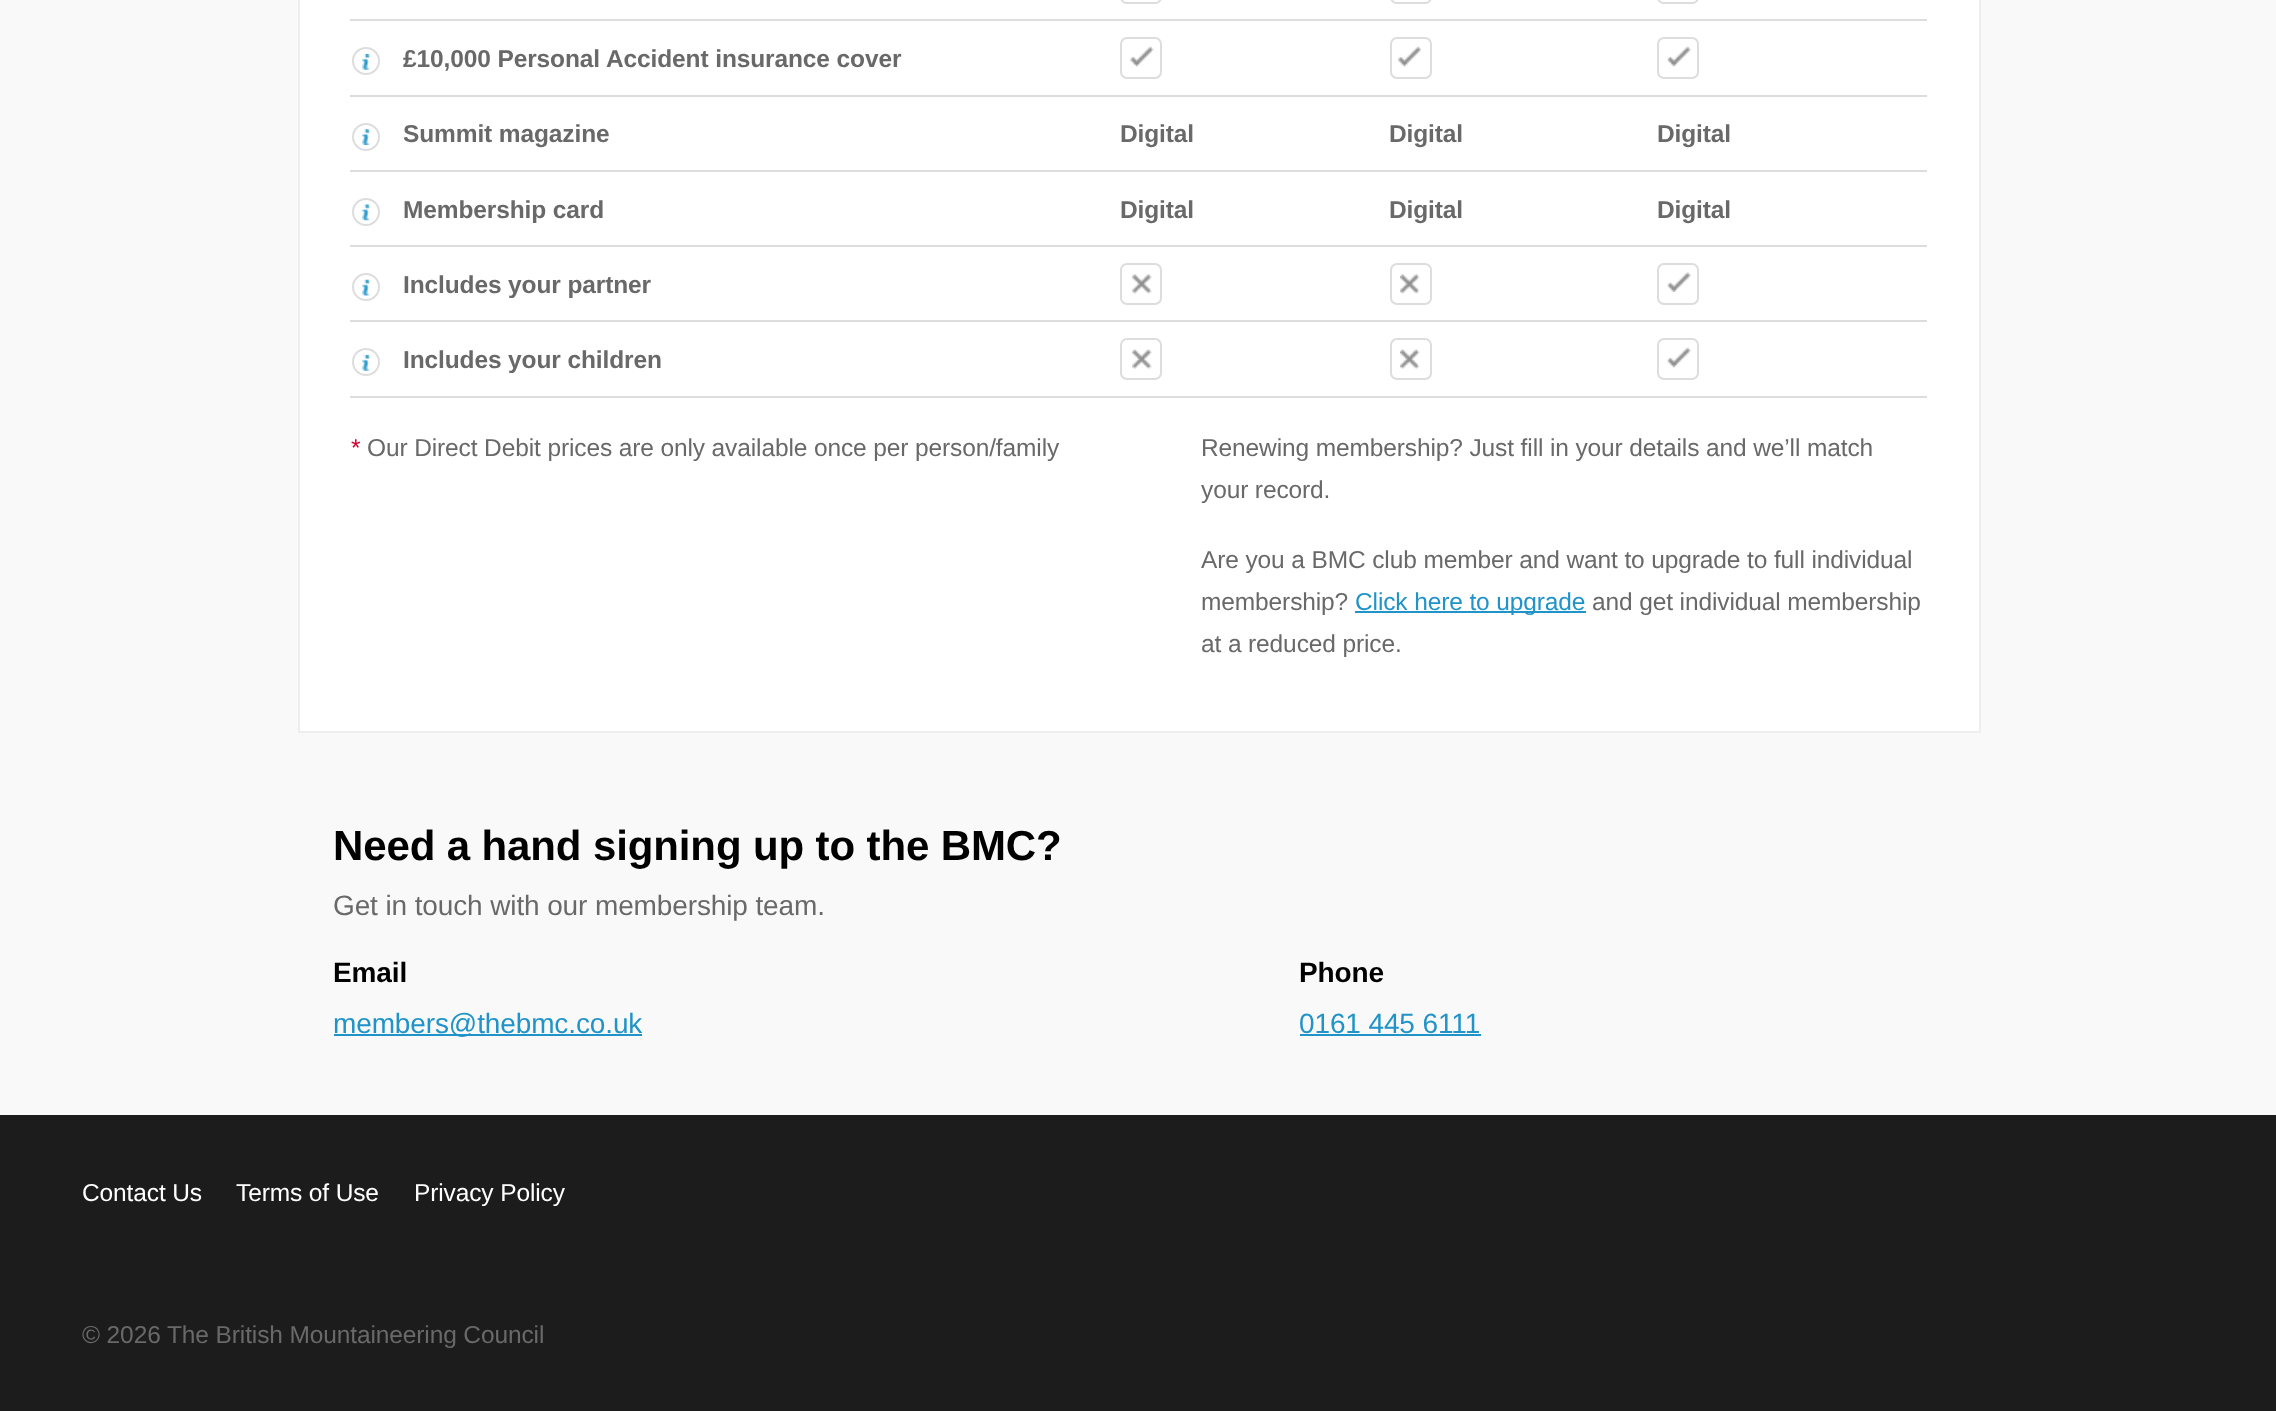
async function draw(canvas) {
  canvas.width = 2276;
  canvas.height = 1411;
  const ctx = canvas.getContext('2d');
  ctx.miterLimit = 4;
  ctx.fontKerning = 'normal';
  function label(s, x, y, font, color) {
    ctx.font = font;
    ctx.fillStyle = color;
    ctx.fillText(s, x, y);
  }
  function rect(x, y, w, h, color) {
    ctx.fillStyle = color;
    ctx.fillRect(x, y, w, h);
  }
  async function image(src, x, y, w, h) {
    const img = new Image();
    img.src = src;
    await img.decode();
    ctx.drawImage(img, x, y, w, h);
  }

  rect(0, 0, 2276, 1411, '#f9f9f9');
  ctx.fillStyle = '#fff';
  ctx.beginPath();
  ctx.rect(299, -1, 1681, 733);
  ctx.fill();
  ctx.strokeStyle = '#eee';
  ctx.lineWidth = 2;
  ctx.stroke();
  rect(350, 19, 1577, 2, '#ddd');
  ctx.beginPath();
  ctx.roundRect(1658, -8, 40, 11, 6);
  ctx.strokeStyle = '#ddd';
  ctx.stroke();
  ctx.beginPath();
  ctx.roundRect(1121, -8, 40, 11, 6);
  ctx.stroke();
  ctx.beginPath();
  ctx.roundRect(1391, -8, 40, 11, 6);
  ctx.stroke();
  rect(350, 95, 1577, 2, '#ddd');
  ctx.beginPath();
  ctx.roundRect(1658, 38, 40, 40, 6);
  ctx.stroke();
  await image('assets/img1.png', 1667, 46, 24, 21);
  await image('assets/img2.png', 362, 54, 8, 16);
  ctx.beginPath();
  ctx.arc(366, 61, 13, 0, 2 * Math.PI);
  ctx.stroke();
  ctx.letterSpacing = '-0.12px';
  label('£10,000 Personal', 403, 67, 'bold 24.5px Liberation Sans', '#696969');
  label('Accident insurance cover', 606, 67, 'bold 24.5px Liberation Sans', '#696969');
  ctx.beginPath();
  ctx.roundRect(1121, 38, 40, 40, 6);
  ctx.stroke();
  await image('assets/img3.png', 1130, 46, 24, 21);
  ctx.beginPath();
  ctx.roundRect(1391, 38, 40, 40, 6);
  ctx.stroke();
  await image('assets/img4.png', 1398, 46, 23, 21);
  await image('assets/img5.png', 362, 129, 8, 16);
  ctx.beginPath();
  ctx.arc(366, 137, 13, 0, 2 * Math.PI);
  ctx.stroke();
  label('Summit magazine', 403, 142, 'bold 24.5px Liberation Sans', '#696969');
  label('Digital', 1120, 142, 'bold 24.5px Liberation Sans', '#696969');
  label('Digital', 1389, 142, 'bold 24.5px Liberation Sans', '#696969');
  rect(350, 170, 1577, 2, '#ddd');
  label('Digital', 1657, 142, 'bold 24.5px Liberation Sans', '#696969');
  await image('assets/img6.png', 362, 204, 8, 17);
  ctx.beginPath();
  ctx.arc(366, 212, 13, 0, 2 * Math.PI);
  ctx.stroke();
  label('Membership card', 403, 218, 'bold 24.5px Liberation Sans', '#696969');
  label('Digital', 1120, 218, 'bold 24.5px Liberation Sans', '#696969');
  label('Digital', 1389, 218, 'bold 24.5px Liberation Sans', '#696969');
  rect(350, 245, 1577, 2, '#ddd');
  label('Digital', 1657, 218, 'bold 24.5px Liberation Sans', '#696969');
  rect(350, 320, 1577, 2, '#ddd');
  ctx.beginPath();
  ctx.roundRect(1658, 264, 40, 40, 6);
  ctx.stroke();
  await image('assets/img7.png', 1667, 272, 24, 20);
  await image('assets/img8.png', 362, 279, 8, 17);
  ctx.beginPath();
  ctx.arc(366, 287, 13, 0, 2 * Math.PI);
  ctx.stroke();
  label('Includes your partner', 403, 293, 'bold 24.5px Liberation Sans', '#696969');
  ctx.beginPath();
  ctx.roundRect(1121, 264, 40, 40, 6);
  ctx.stroke();
  await image('assets/img9.png', 1132, 274, 20, 20);
  ctx.beginPath();
  ctx.roundRect(1391, 264, 40, 40, 6);
  ctx.stroke();
  await image('assets/img10.png', 1400, 274, 20, 20);
  rect(350, 396, 1577, 2, '#ddd');
  ctx.beginPath();
  ctx.roundRect(1658, 339, 40, 40, 6);
  ctx.stroke();
  await image('assets/img1.png', 1667, 347, 24, 21);
  await image('assets/img2.png', 362, 355, 8, 16);
  ctx.beginPath();
  ctx.arc(366, 362, 13, 0, 2 * Math.PI);
  ctx.stroke();
  label('Includes your children', 403, 368, 'bold 24.5px Liberation Sans', '#696969');
  ctx.beginPath();
  ctx.roundRect(1121, 339, 40, 40, 6);
  ctx.stroke();
  await image('assets/img11.png', 1132, 349, 20, 20);
  ctx.beginPath();
  ctx.roundRect(1391, 339, 40, 40, 6);
  ctx.stroke();
  await image('assets/img12.png', 1400, 349, 20, 20);
  label('*', 351, 456, '24.5px Liberation Sans', '#ce002e');
  label('Our Direct Debit prices are only available once per person/family', 367, 456, '24.5px Liberation Sans', '#696969');
  label('Renewing membership? Just fill in your details and we’ll match', 1201, 456, '24.5px Liberation Sans', '#696969');
  label('your record.', 1201, 498, '24.5px Liberation Sans', '#696969');
  label('Are you a BMC club member and want to upgrade to full individual', 1201, 568, '24.5px Liberation Sans', '#696969');
  label('membership?', 1201, 610, '24.5px Liberation Sans', '#696969');
  rect(1355, 611, 231, 2, '#2093c8');
  label('Click here to upgrade', 1355, 610, '24.5px Liberation Sans', '#2093c8');
  label('and get individual membership', 1592, 610, '24.5px Liberation Sans', '#696969');
  label('at a reduced price.', 1201, 652, '24.5px Liberation Sans', '#696969');
  label('Need a hand signing up to the BMC?', 333, 860, 'bold 42px Liberation Sans', '#000');
  label('Get in touch with our membership team.', 333, 915, '28px Liberation Sans', '#696969');
  label('Email', 333, 982, 'bold 28px Liberation Sans', '#000');
  rect(334, 1034, 308, 2, '#2093c8');
  label('members@thebmc.co.uk', 333, 1033, '28px Liberation Sans', '#2093c8');
  label('Phone', 1299, 982, 'bold 28px Liberation Sans', '#000');
  label('0161 445 6111', 1299, 1033, '28px Liberation Sans', '#2093c8');
  rect(1300, 1034, 181, 2, '#2093c8');
  rect(0, 1115, 2276, 296, '#1c1c1c');
  label('Contact Us', 82, 1201, '24.5px Liberation Sans', '#fff');
  label('Terms of Use', 236, 1201, '24.5px Liberation Sans', '#fff');
  label('Privacy Policy', 414, 1201, '24.5px Liberation Sans', '#fff');
  label('© 2026', 82, 1343, '24.5px Liberation Sans', '#696969');
  label('The British Mountaineering Council', 167, 1343, '24.5px Liberation Sans', '#696969');
}

draw(document.querySelector('canvas'));
